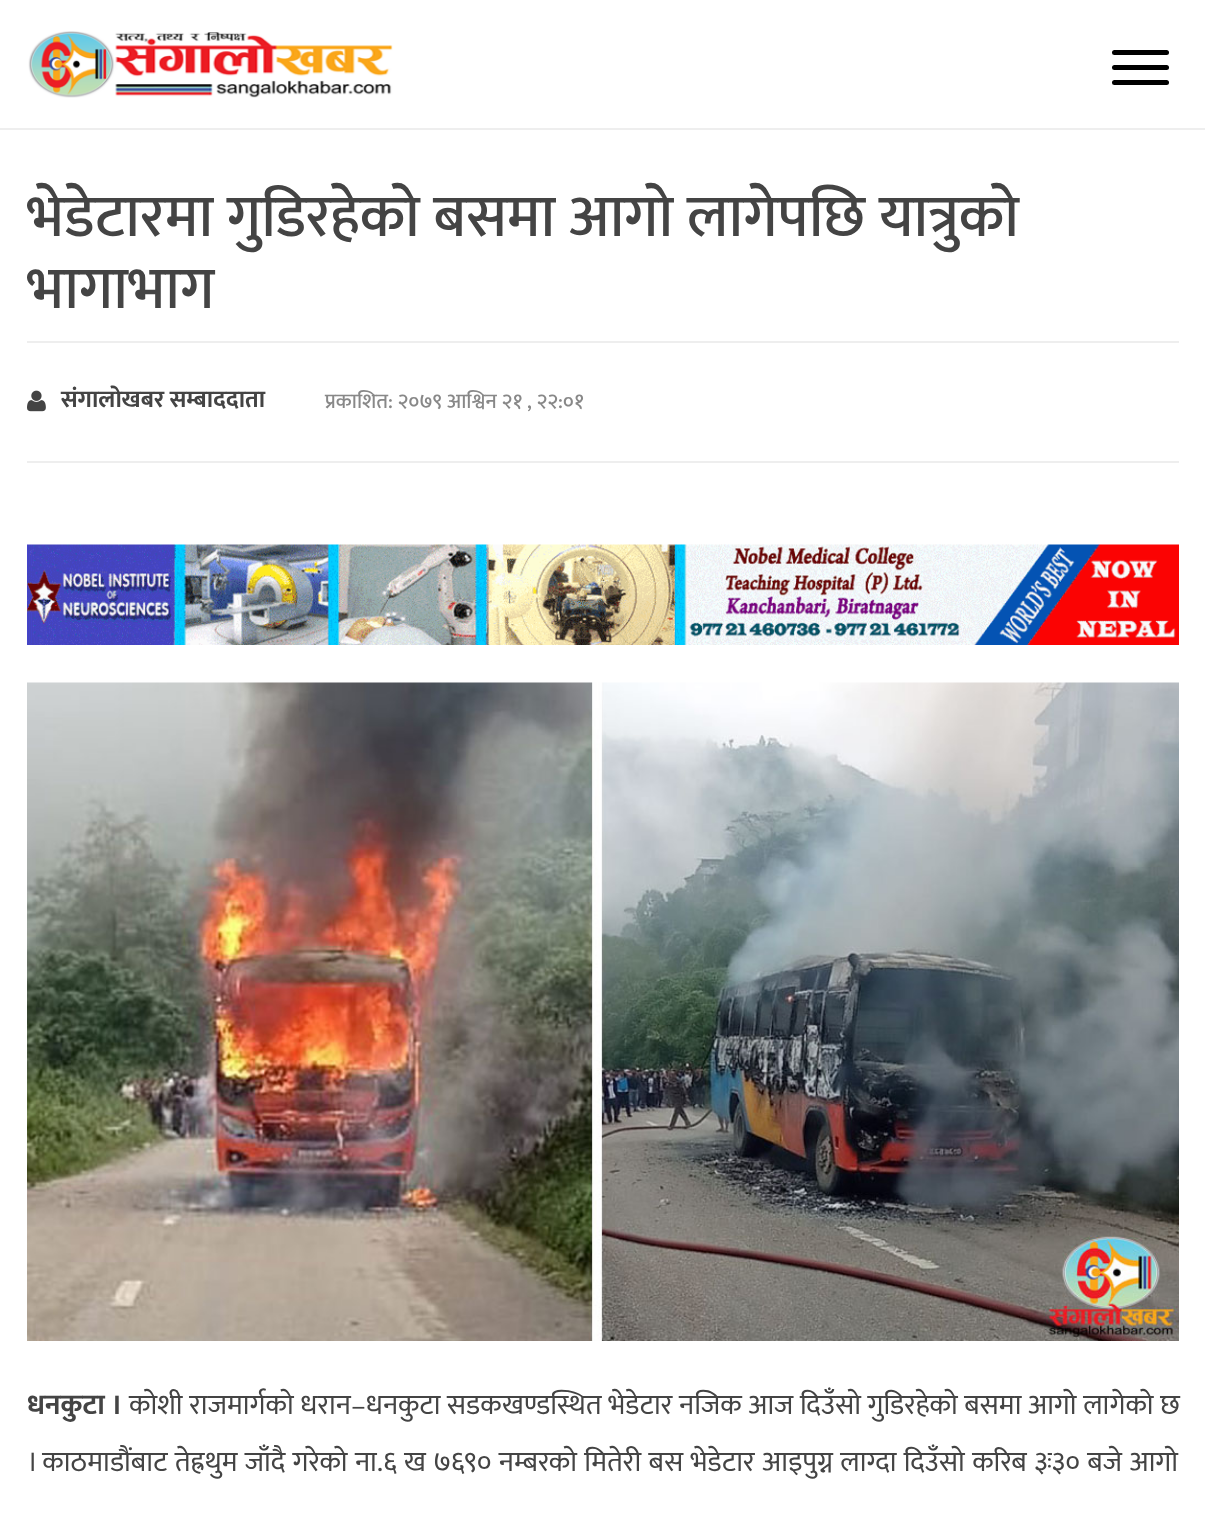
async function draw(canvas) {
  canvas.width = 1205;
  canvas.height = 1516;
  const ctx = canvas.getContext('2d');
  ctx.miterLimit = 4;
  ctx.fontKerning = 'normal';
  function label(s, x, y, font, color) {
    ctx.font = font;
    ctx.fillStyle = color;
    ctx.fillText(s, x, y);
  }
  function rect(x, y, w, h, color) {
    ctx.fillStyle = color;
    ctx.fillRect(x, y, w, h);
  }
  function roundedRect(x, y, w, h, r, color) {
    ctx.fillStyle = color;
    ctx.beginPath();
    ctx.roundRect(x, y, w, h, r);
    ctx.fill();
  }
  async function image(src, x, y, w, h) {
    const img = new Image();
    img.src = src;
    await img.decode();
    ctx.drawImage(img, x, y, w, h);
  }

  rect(0, 0, 1205, 1516, '#fff');
  rect(0, 128, 1205, 2, '#eee');
  await image('assets/img1.png', 28, 31, 365, 67);
  roundedRect(1112, 50, 57, 5, 2.5, '#000');
  roundedRect(1112, 80, 57, 5, 2.5, '#000');
  roundedRect(1112, 65, 57, 5, 2.5, '#000');
  rect(27, 341, 1152, 2, '#eee');
  label('भेडेटारमा गुडिरहेको बसमा आगो लागेपछि यात्रुको', 27, 236, '500 60px Ek Mukta', '#444');
  label('भागाभाग', 27, 308, '500 60px Ek Mukta', '#444');
  await image('assets/img2.png', 27, 390, 19, 22);
  label('संगालोखबर सम्बाददाता', 61, 407, 'bold 24px Ek Mukta', '#444');
  label('प्रकाशित: २०७९ आश्विन २१ , २२:०१', 325, 408, '500 21px Ek Mukta', '#888');
  rect(27, 461, 1152, 2, '#eee');
  await image('assets/img3.png', 27, 544, 1152, 101);
  await image('assets/img4.png', 27, 682, 1152, 659);
  label('धनकुटा ।', 27, 1414, 'bold 28.5px Ek Mukta', '#444');
  ctx.wordSpacing = '0.25px';
  label('कोशी राजमार्गको धरान–धनकुटा सडकखण्डस्थित भेडेटार नजिक आज दिउँसो गुडिरहेको बसमा आगो लागेको छ', 129, 1414, '28.5px Ek Mukta', '#444');
  ctx.wordSpacing = '1px';
  label('। काठमाडौंबाट तेह्रथुम जाँदै गरेको ना.६ ख ७६९० नम्बरको मितेरी बस भेडेटार आइपुग्न लाग्दा दिउँसो करिब ३ः३० बजे आगो', 27, 1471, '28.5px Ek Mukta', '#444');
}

draw(document.querySelector('canvas'));
